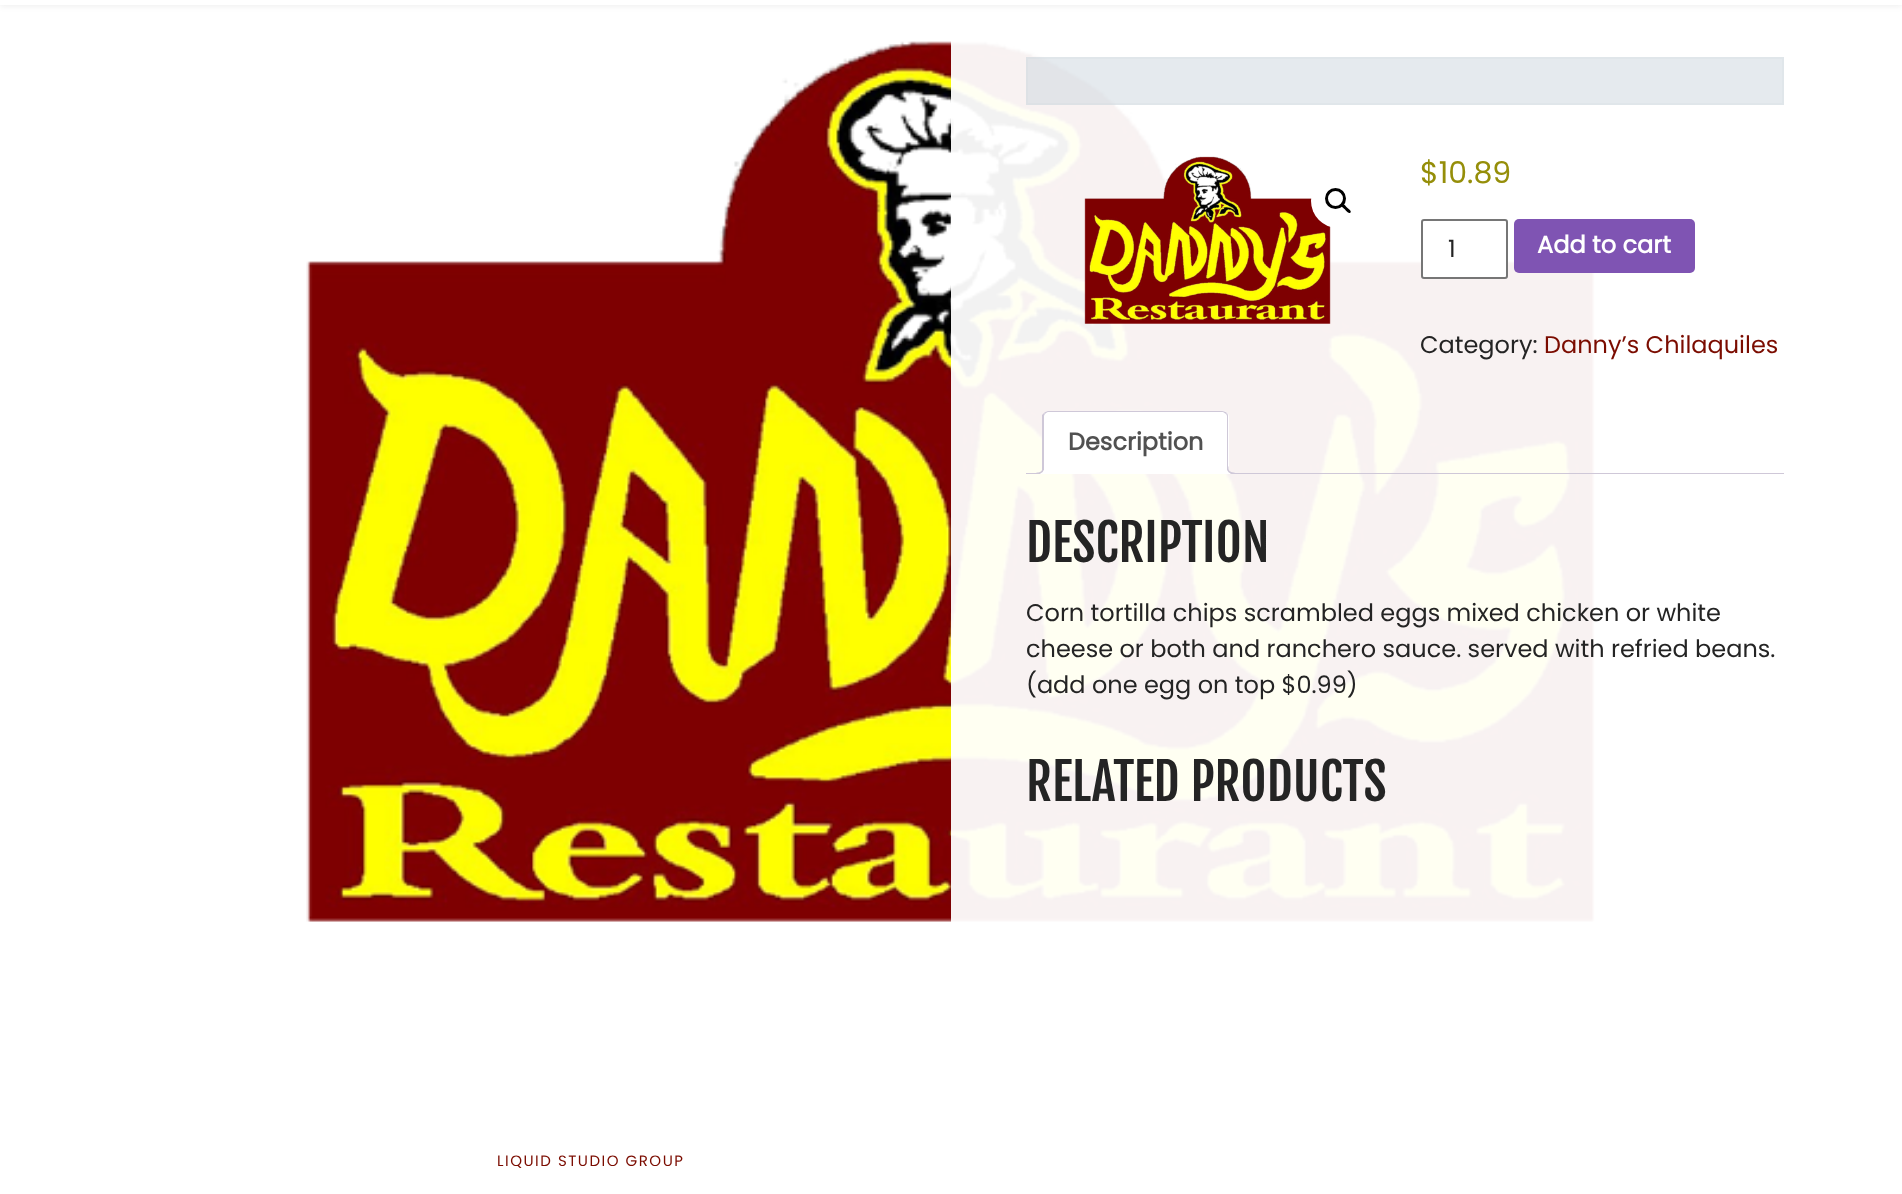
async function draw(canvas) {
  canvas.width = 1902;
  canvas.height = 1194;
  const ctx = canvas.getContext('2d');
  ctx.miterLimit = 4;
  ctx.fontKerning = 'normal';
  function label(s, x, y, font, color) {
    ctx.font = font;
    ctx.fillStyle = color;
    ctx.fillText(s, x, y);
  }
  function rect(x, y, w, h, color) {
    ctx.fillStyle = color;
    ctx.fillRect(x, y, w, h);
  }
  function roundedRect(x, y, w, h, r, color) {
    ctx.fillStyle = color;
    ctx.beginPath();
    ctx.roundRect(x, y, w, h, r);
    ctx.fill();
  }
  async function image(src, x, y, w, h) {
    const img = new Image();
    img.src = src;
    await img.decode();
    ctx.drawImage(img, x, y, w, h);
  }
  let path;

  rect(0, 0, 1902, 1194, '#fff');
  ctx.save();
  path = new Path2D('M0 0H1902V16H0ZM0-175H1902V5H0Z');
  ctx.clip(path, 'evenodd');
  ctx.fillStyle = '#00000012';
  ctx.filter = 'blur(3px)';
  ctx.beginPath();
  ctx.rect(0, -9, 1902, 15);
  ctx.fill();
  ctx.filter = 'none';
  ctx.restore();
  rect(0, 4, 1902, 1, '#fffffff2');
  await image('assets/img1.png', 306, 41, 1290, 881);
  rect(951, 41, 645, 881, '#fffffff2');
  rect(1026, 57, 758, 48, '#ccd6dd80');
  ctx.strokeStyle = '#ccd6dd33';
  ctx.lineWidth = 2;
  ctx.strokeRect(1027, 58, 756, 46);
  await image('assets/img2.png', 1084, 156, 247, 168);
  ctx.fillStyle = '#fff';
  ctx.beginPath();
  ctx.arc(1338, 201, 27, 0, 2 * Math.PI);
  ctx.fill();
  ctx.beginPath();
  ctx.arc(1335.5, 198.5, 9, 0, 2 * Math.PI);
  ctx.strokeStyle = '#000';
  ctx.lineWidth = 3;
  ctx.stroke();
  ctx.fillStyle = '#000';
  path = new Path2D('M1342 204.5C1343.5 202.5 1346 206.5 1347 207.5C1348 208.5 1352 211 1350.5 212.5C1348.5 214.5 1346 210.5 1345 209.5C1344 208.5 1340 206 1342 204.5Z');
  ctx.fill(path);
  label('$10.89', 1420, 183, '30px Poppins', '#958e09');
  ctx.fillStyle = '#fff';
  ctx.beginPath();
  ctx.roundRect(1422, 220, 85, 58, 2);
  ctx.fill();
  ctx.strokeStyle = '#767676';
  ctx.lineWidth = 2;
  ctx.stroke();
  label('1', 1448, 257, '24px Poppins', '#242424');
  roundedRect(1514, 219, 181, 54, 5, '#7f54b3');
  label('Add to cart', 1537, 253, 'bold 24px Poppins', '#fff');
  label('Category:', 1420, 353, '24px Poppins', '#242424');
  label('Danny’s Chilaquiles', 1544, 353, '24px Poppins', '#7b0c00');
  rect(1026, 473, 758, 1, '#cfc8d8');
  ctx.fillStyle = '#fff';
  ctx.beginPath();
  ctx.roundRect(1043, 411, 186, 63, [6, 6, 0, 0]);
  ctx.fill();
  ctx.fillStyle = '#cfc8d8';
  path = new Path2D('M1048 411C1047 411 1045 412 1044 413L1045 414C1046 413 1047 412 1048 412H1223L1226 414L1227 413C1226 412 1224 411 1222 411Z');
  ctx.fill(path);
  path = new Path2D('M1227 413C1228 414 1228 416 1228 417V474L1226 472H1227V417C1227 416 1227 415 1226 414Z');
  ctx.fill(path);
  ctx.fillStyle = '#fff';
  path = new Path2D('M1042 474H1228L1226 472H1044Z');
  ctx.fill(path);
  ctx.fillStyle = '#cfc8d8';
  path = new Path2D('M1042 474V415L1044 413L1045 414C1044 415 1044 416 1044 417V472Z');
  ctx.fill(path);
  label('Description', 1068, 450, 'bold 24px Poppins', '#515151');
  ctx.save();
  ctx.beginPath();
  ctx.rect(1026, 411, 758, 63);
  ctx.clip();
  ctx.fillStyle = '#fff';
  path = new Path2D('M1040 473.5V477C1044.5 477 1047 474.5 1047 470H1043.5C1043 471.5 1041.5 473 1040 473.5Z');
  ctx.fill(path);
  ctx.restore();
  ctx.fillStyle = '#cfc8d8';
  path = new Path2D('M1036.5 466.5H1044C1044 472 1042 474 1036.5 474ZM1036.5 466.5H1042.5C1042.5 471 1041 472.5 1036.5 472.5Z');
  ctx.fill(path, 'evenodd');
  ctx.save();
  ctx.beginPath();
  ctx.rect(1026, 411, 758, 63);
  ctx.clip();
  ctx.fillStyle = '#fff';
  path = new Path2D('M1224 470C1224 475.5 1227 477 1232 477V474C1230 473.5 1228 472 1227.5 470Z');
  ctx.fill(path);
  ctx.restore();
  path = new Path2D('M1227 466.5H1234.5V474C1230.5 474 1227 472.5 1227 468ZM1228.5 466.5H1234.5V472.5C1231.5 472.5 1228.5 471.5 1228.5 468Z');
  ctx.fill(path, 'evenodd');
  label('DESCRIPTION', 1026, 562, '50.5px Fjalla One', '#242424');
  label('Corn tortilla chips scrambled eggs mixed chicken or white', 1026, 621, '24px Poppins', '#242424');
  label('cheese or both and ranchero sauce. served with refried beans.', 1026, 657, '24px Poppins', '#242424');
  label('(add one egg on top $0.99)', 1026, 693, '24px Poppins', '#242424');
  label('RELATED PRODUCTS', 1026, 801, '50.5px Fjalla One', '#242424');
  ctx.letterSpacing = '1.5px';
  label('LIQUID STUDIO GROUP', 497, 1166, '15px Poppins', '#7b0c00');
}

draw(document.querySelector('canvas'));
